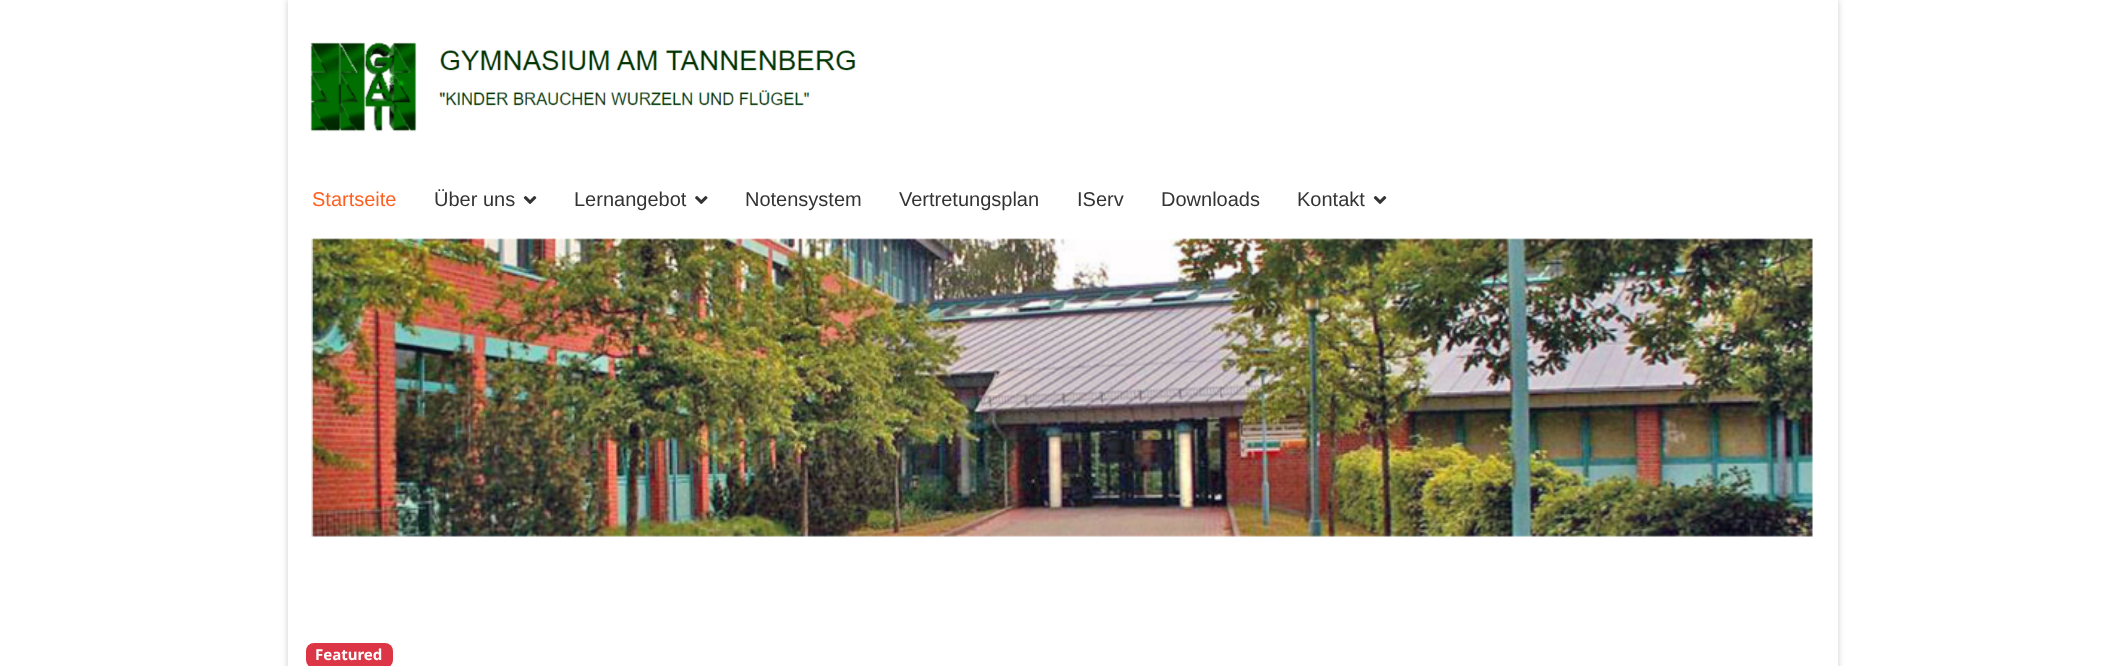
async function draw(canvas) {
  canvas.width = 2123;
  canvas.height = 666;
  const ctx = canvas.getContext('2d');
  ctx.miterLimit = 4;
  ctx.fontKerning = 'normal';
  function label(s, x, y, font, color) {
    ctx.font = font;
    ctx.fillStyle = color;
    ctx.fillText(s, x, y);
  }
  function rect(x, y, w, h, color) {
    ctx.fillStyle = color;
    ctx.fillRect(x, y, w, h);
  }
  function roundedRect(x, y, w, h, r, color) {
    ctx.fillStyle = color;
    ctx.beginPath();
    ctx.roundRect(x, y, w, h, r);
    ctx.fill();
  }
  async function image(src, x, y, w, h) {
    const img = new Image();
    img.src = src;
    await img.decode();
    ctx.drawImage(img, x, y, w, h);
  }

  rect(0, 0, 2123, 666, '#fff');
  ctx.fillStyle = '#00000033';
  ctx.filter = 'blur(3px)';
  ctx.beginPath();
  ctx.rect(288, 0, 1550, 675);
  ctx.fill();
  ctx.filter = 'none';
  rect(288, 0, 1550, 666, '#fff');
  await image('assets/img1.png', 310, 42, 546, 90);
  label('Startseite', 312, 206, '20px Liberation Sans', '#ff5f1f');
  label('Über uns', 434, 206, '20px Liberation Sans', '#333');
  await image('assets/img2.png', 523, 196, 14, 8);
  label('Lernangebot', 574, 206, '20px Liberation Sans', '#333');
  await image('assets/img3.png', 695, 196, 13, 8);
  label('Notensystem', 745, 206, '20px Liberation Sans', '#333');
  label('Vertretungsplan', 899, 206, '20px Liberation Sans', '#333');
  label('IServ', 1077, 206, '20px Liberation Sans', '#333');
  label('Downloads', 1161, 206, '20px Liberation Sans', '#333');
  label('Kontakt', 1297, 206, '20px Liberation Sans', '#333');
  await image('assets/img2.png', 1373, 196, 14, 8);
  await image('assets/img4.png', 311, 238, 1502, 299);
  roundedRect(306, 643, 87, 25, 8, '#dc3545');
  label('Featured', 315, 660, 'bold 15px Noto Sans', '#fff');
}

draw(document.querySelector('canvas'));
